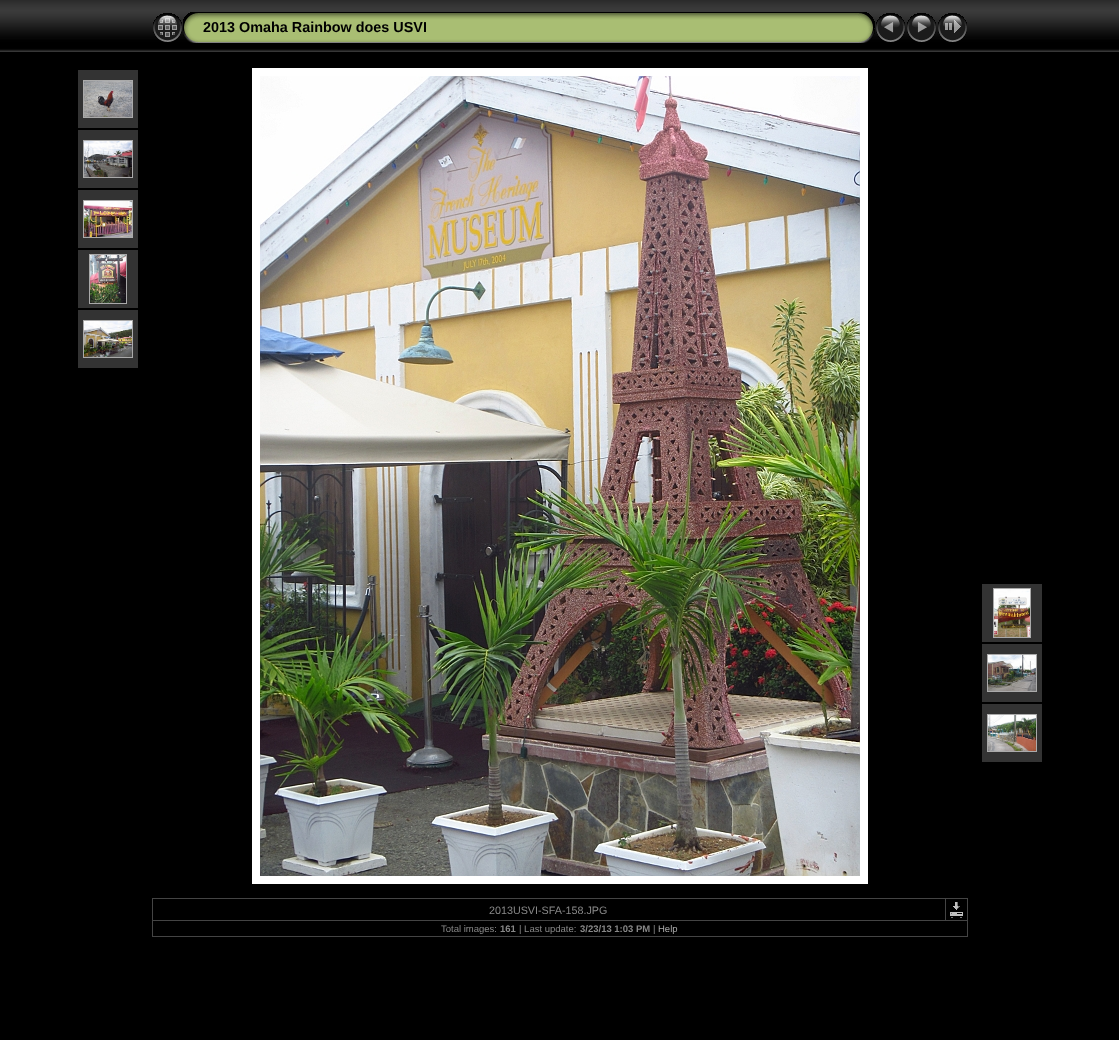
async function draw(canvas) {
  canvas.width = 1119;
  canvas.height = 1040;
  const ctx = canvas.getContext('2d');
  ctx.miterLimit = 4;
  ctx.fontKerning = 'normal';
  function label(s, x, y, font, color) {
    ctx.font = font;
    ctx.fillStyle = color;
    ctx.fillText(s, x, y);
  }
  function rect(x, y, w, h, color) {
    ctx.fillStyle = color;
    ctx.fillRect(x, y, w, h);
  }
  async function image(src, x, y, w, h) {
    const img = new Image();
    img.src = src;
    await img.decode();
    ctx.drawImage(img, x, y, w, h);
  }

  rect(0, 0, 1119, 1040, '#000');
  await image('assets/img1.png', 0, 0, 1119, 52);
  await image('assets/img2.png', 153, 13, 29, 29);
  await image('assets/img3.png', 183, 12, 20, 31);
  await image('assets/img4.png', 203, 12, 652, 31);
  label('2013 Omaha Rainbow does USVI', 203, 32, 'bold 14.4px Liberation Sans', '#000');
  await image('assets/img5.png', 855, 12, 20, 31);
  await image('assets/img6.png', 876, 13, 29, 29);
  await image('assets/img7.png', 907, 13, 29, 29);
  await image('assets/img8.png', 938, 13, 29, 29);
  rect(78, 70, 60, 58, '#333');
  ctx.strokeStyle = '#aaa';
  ctx.strokeRect(83.5, 80.5, 49, 37);
  await image('assets/img9.png', 84, 81, 48, 36);
  rect(78, 130, 60, 58, '#333');
  ctx.strokeRect(83.5, 140.5, 49, 37);
  await image('assets/img10.png', 84, 141, 48, 36);
  rect(78, 190, 60, 58, '#333');
  ctx.strokeRect(83.5, 200.5, 49, 37);
  await image('assets/img11.png', 84, 201, 48, 36);
  rect(78, 250, 60, 58, '#333');
  ctx.strokeRect(89.5, 254.5, 37, 49);
  await image('assets/img12.png', 90, 255, 36, 48);
  rect(78, 310, 60, 58, '#333');
  ctx.strokeRect(83.5, 320.5, 49, 37);
  await image('assets/img13.png', 84, 321, 48, 36);
  ctx.strokeStyle = '#fff';
  ctx.lineWidth = 8;
  ctx.strokeRect(256, 72, 608, 808);
  await image('assets/img14.png', 260, 76, 600, 800);
  rect(982, 584, 60, 58, '#333');
  ctx.strokeStyle = '#aaa';
  ctx.lineWidth = 1;
  ctx.strokeRect(993.5, 588.5, 37, 49);
  await image('assets/img15.png', 994, 589, 36, 48);
  rect(982, 644, 60, 58, '#333');
  ctx.strokeRect(987.5, 654.5, 49, 37);
  await image('assets/img16.png', 988, 655, 48, 36);
  rect(982, 704, 60, 58, '#333');
  ctx.strokeRect(987.5, 714.5, 49, 37);
  await image('assets/img17.png', 988, 715, 48, 36);
  rect(152, 898, 816, 1, '#444');
  rect(967, 898, 1, 39, '#444');
  rect(152, 936, 816, 1, '#444');
  rect(152, 898, 1, 39, '#444');
  label('2013USVI-SFA-158.JPG', 489, 914, '10.75px Liberation Sans', '#888');
  rect(152, 920, 816, 1, '#444');
  rect(945, 898, 1, 23, '#444');
  await image('assets/img18.png', 950, 902, 13, 16);
  label('Total images:', 441, 932, '9.5px Liberation Sans', '#888');
  label('161', 500, 932, 'bold 9.5px Liberation Sans', '#888');
  label('| Last update:', 519, 932, '9.5px Liberation Sans', '#888');
  label('3/23/13 1:03 PM', 580, 932, 'bold 9.5px Liberation Sans', '#888');
  label('|', 653, 932, '9.5px Liberation Sans', '#888');
  label('Help', 658, 932, '9.5px Liberation Sans', '#aaa');
}

draw(document.querySelector('canvas'));
